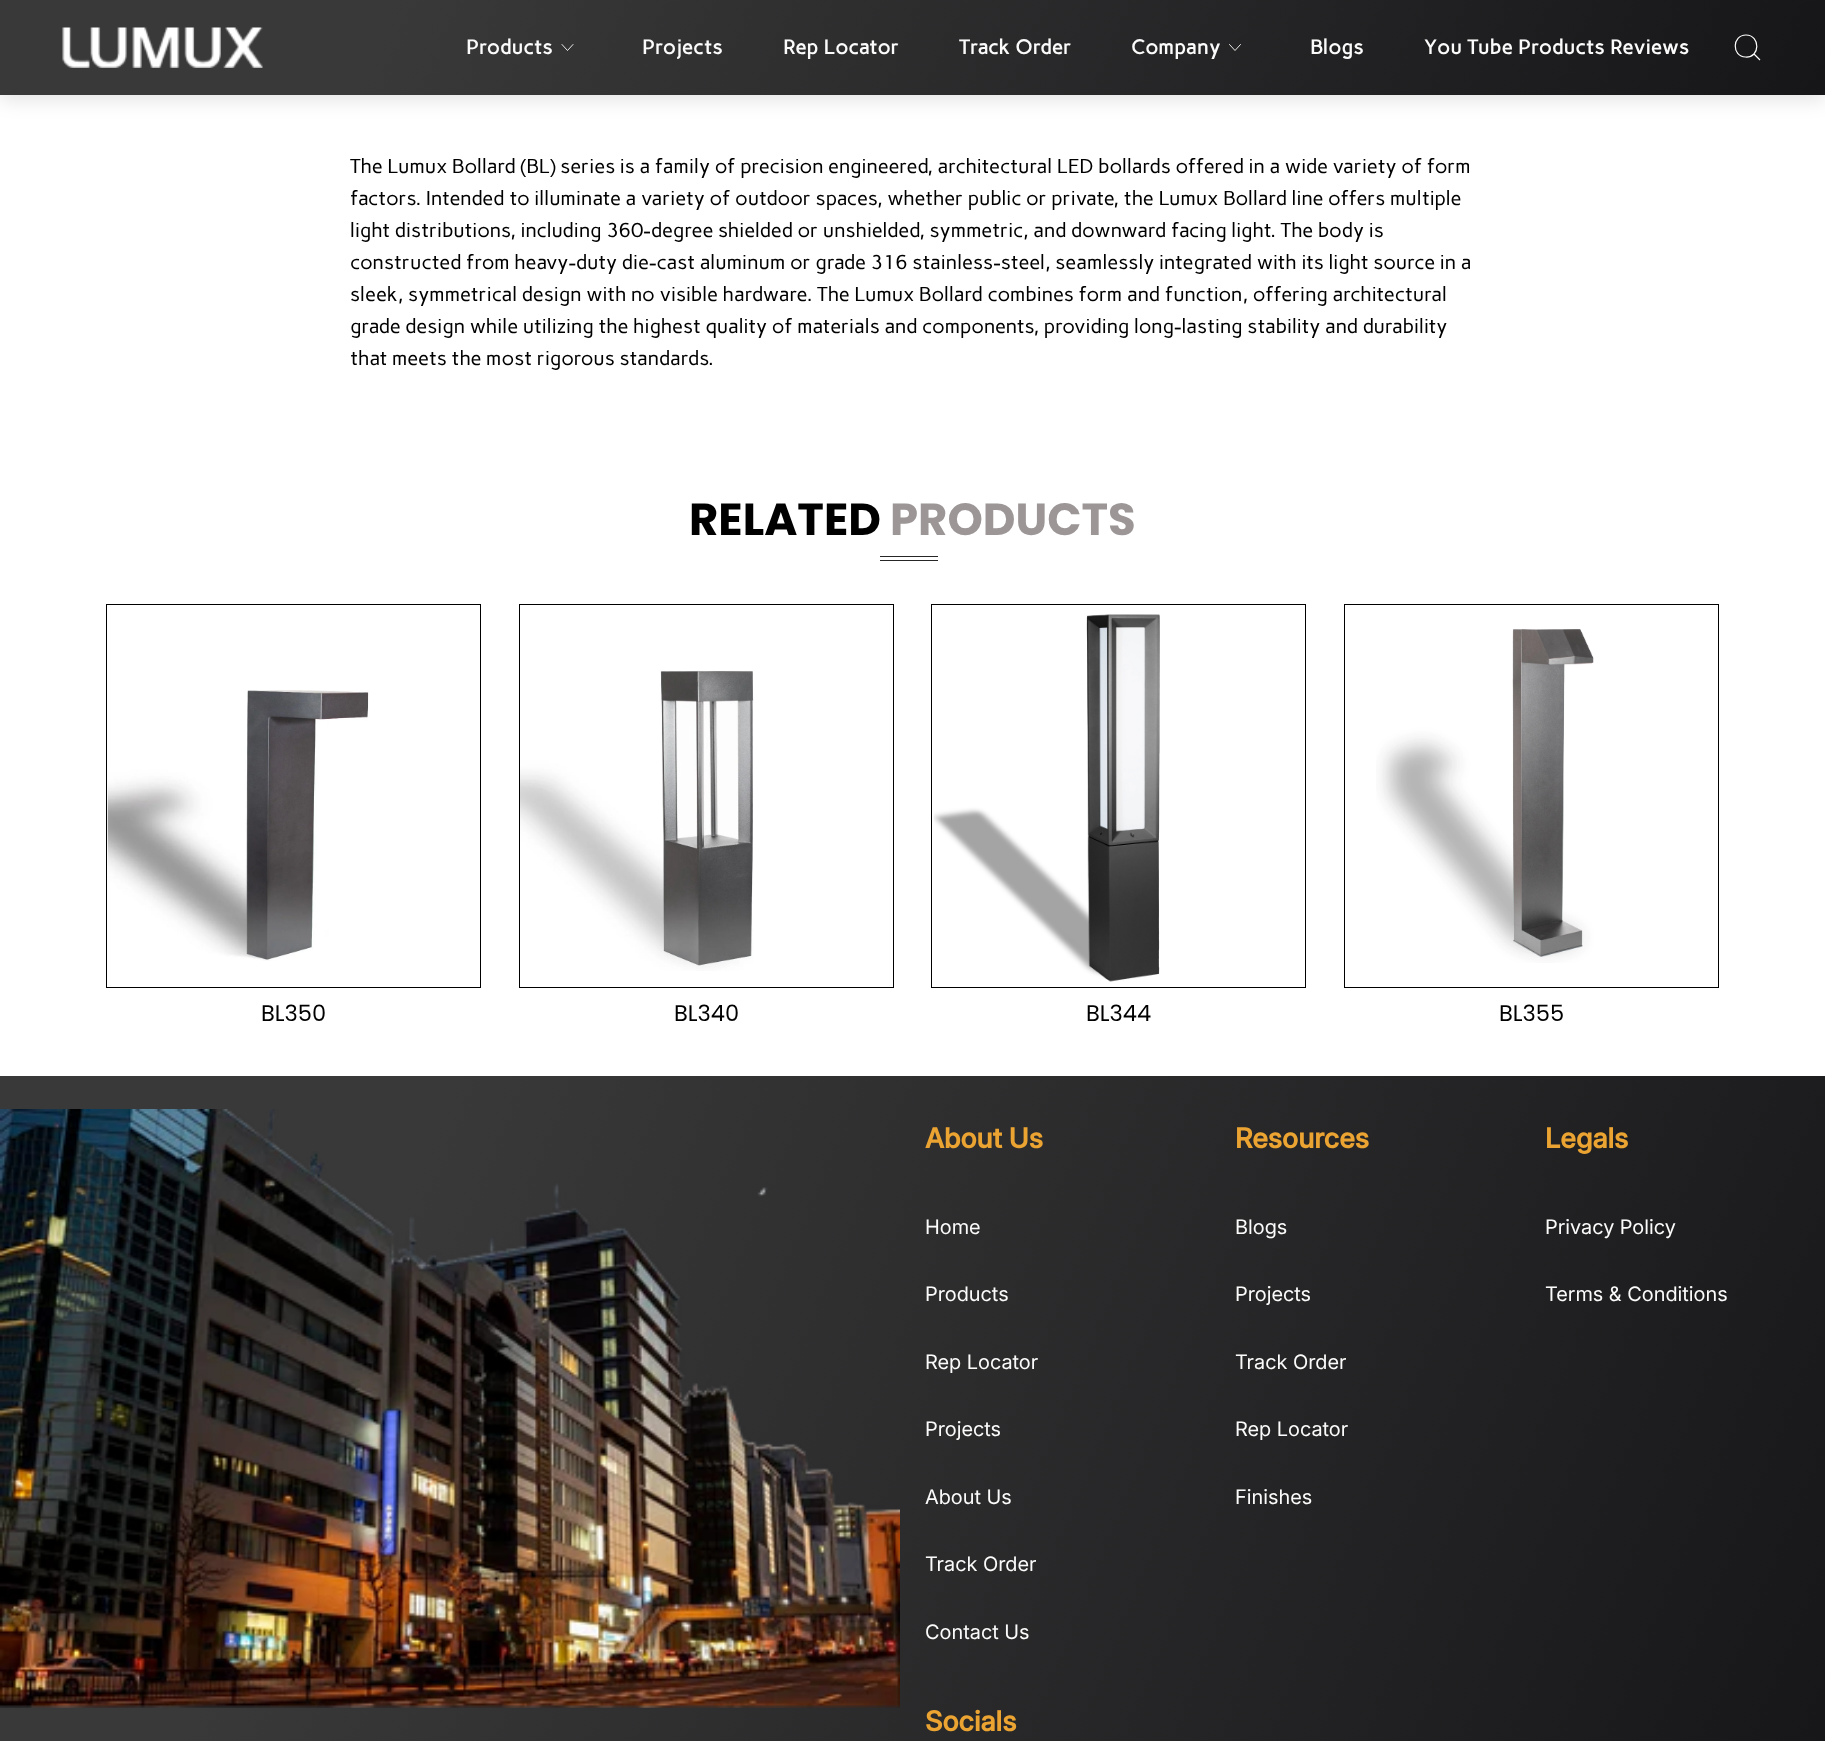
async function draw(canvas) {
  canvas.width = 1825;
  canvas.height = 1741;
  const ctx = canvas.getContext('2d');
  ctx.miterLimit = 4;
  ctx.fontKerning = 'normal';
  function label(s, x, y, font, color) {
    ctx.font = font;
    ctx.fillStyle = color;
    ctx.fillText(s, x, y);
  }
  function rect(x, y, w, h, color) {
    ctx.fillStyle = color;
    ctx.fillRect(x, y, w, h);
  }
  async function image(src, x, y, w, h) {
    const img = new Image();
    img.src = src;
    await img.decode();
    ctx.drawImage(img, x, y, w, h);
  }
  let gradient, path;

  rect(0, 0, 1825, 1741, '#fff');
  ctx.fillStyle = '#0000001c';
  ctx.filter = 'blur(9.5px)';
  ctx.beginPath();
  ctx.rect(0, 5, 1825, 95);
  ctx.fill();
  ctx.filter = 'none';
  gradient = ctx.createLinearGradient(115, -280, 1710, 375);
  gradient.addColorStop(0.21, '#39393a');
  gradient.addColorStop(1, '#161618');
  ctx.fillStyle = gradient;
  ctx.fillRect(0, 0, 1825, 95);
  await image('assets/img1.png', 62, 27, 201, 41);
  ctx.letterSpacing = '0.5px';
  label('Products', 466, 54, 'bold 20px Carme', '#fbfbfb');
  path = new Path2D('M562 44.5L567.5 50.5L573 44.5');
  ctx.strokeStyle = '#fff';
  ctx.lineWidth = 0.9;
  ctx.lineCap = 'round';
  ctx.lineJoin = 'round';
  ctx.stroke(path);
  label('Projects', 642, 54, 'bold 20px Carme', '#fbfbfb');
  label('Rep Locator', 783, 54, 'bold 20px Carme', '#fbfbfb');
  label('Track Order', 959, 54, 'bold 20px Carme', '#fbfbfb');
  label('Company', 1131, 54, 'bold 20px Carme', '#fbfbfb');
  path = new Path2D('M1229.5 44.5L1235 50.5L1240.5 44.5');
  ctx.stroke(path);
  label('Blogs', 1310, 54, 'bold 20px Carme', '#fbfbfb');
  label('You Tube Products Reviews', 1424, 54, 'bold 20px Carme', '#fbfbfb');
  path = new Path2D('M1746 35C1760.5 35 1760.5 58 1745.5 57C1731.5 56.5 1732 35 1746 35ZM1754 54L1760 60');
  ctx.lineWidth = 1.2;
  ctx.lineCap = 'butt';
  ctx.lineJoin = 'miter';
  ctx.stroke(path);
  ctx.letterSpacing = '0px';
  label('The Lumux Bollard (BL) series is a family of precision engineered, architectural LED bollards offered in a wide variety of form', 350, 173, '20px Carme', '#000');
  label('factors. Intended to illuminate a variety of outdoor spaces, whether public or private, the Lumux Bollard line offers multiple', 350, 205, '20px Carme', '#000');
  label('light distributions, including 360-degree shielded or unshielded, symmetric, and downward facing light. The body is', 350, 237, '20px Carme', '#000');
  label('constructed from heavy-duty die-cast aluminum or grade 316 stainless-steel, seamlessly integrated with its light source in a', 350, 269, '20px Carme', '#000');
  label('sleek, symmetrical design with no visible hardware. The Lumux Bollard combines form and function, offering architectural', 350, 301, '20px Carme', '#000');
  label('grade design while utilizing the highest quality of materials and components, providing long-lasting stability and durability', 350, 333, '20px Carme', '#000');
  label('that meets the most rigorous standards.', 350, 365, '20px Carme', '#000');
  label('RELATED', 689, 535, 'bold 45px Poppins', '#000');
  label('PRODUCTS', 890, 535, 'bold 45px Poppins', '#9c9696');
  rect(880, 556, 58, 1, '#262626');
  rect(880, 560, 58, 1, '#262626');
  ctx.strokeStyle = '#000';
  ctx.lineWidth = 1;
  ctx.strokeRect(106.5, 604.5, 374, 383);
  await image('assets/img2.png', 107, 690, 262, 271);
  label('BL350', 261, 1021, '22.5px Poppins', '#000');
  ctx.strokeRect(519.5, 604.5, 374, 383);
  await image('assets/img3.png', 520, 670, 234, 301);
  label('BL340', 674, 1021, '22.5px Poppins', '#000');
  ctx.strokeRect(931.5, 604.5, 374, 383);
  await image('assets/img4.png', 933, 614, 227, 368);
  label('BL344', 1086, 1021, '22.5px Poppins', '#000');
  ctx.strokeRect(1344.5, 604.5, 374, 383);
  await image('assets/img5.png', 1376, 629, 218, 334);
  label('BL355', 1499, 1021, '22.5px Poppins', '#000');
  gradient = ctx.createLinearGradient(-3.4, 1085, 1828, 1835);
  gradient.addColorStop(0.21, '#39393a');
  gradient.addColorStop(1, '#161618');
  ctx.fillStyle = gradient;
  ctx.fillRect(0, 1076, 1825, 665);
  await image('assets/img6.png', 0, 1109, 900, 599);
  label('About Us', 925, 1148, 'bold 27.5px Inter', '#eba432');
  label('Home', 925, 1234, '20px Inter', '#fbfbfb');
  label('Products', 925, 1301, '20px Inter', '#fbfbfb');
  label('Rep Locator', 925, 1369, '20px Inter', '#fbfbfb');
  label('Projects', 925, 1436, '20px Inter', '#fbfbfb');
  label('About Us', 925, 1504, '20px Inter', '#fbfbfb');
  label('Track Order', 925, 1571, '20px Inter', '#fbfbfb');
  label('Contact Us', 925, 1639, '20px Inter', '#fbfbfb');
  label('Resources', 1235, 1148, 'bold 27.5px Inter', '#eba432');
  label('Blogs', 1235, 1234, '20px Inter', '#fbfbfb');
  label('Projects', 1235, 1301, '20px Inter', '#fbfbfb');
  label('Track Order', 1235, 1369, '20px Inter', '#fbfbfb');
  label('Rep Locator', 1235, 1436, '20px Inter', '#fbfbfb');
  label('Finishes', 1235, 1504, '20px Inter', '#fbfbfb');
  label('Legals', 1545, 1148, 'bold 27.5px Inter', '#eba432');
  label('Privacy Policy', 1545, 1234, '20px Inter', '#fbfbfb');
  label('Terms & Conditions', 1545, 1301, '20px Inter', '#fbfbfb');
  label('Socials', 925, 1731, 'bold 27.5px Inter', '#eba432');
}

draw(document.querySelector('canvas'));
